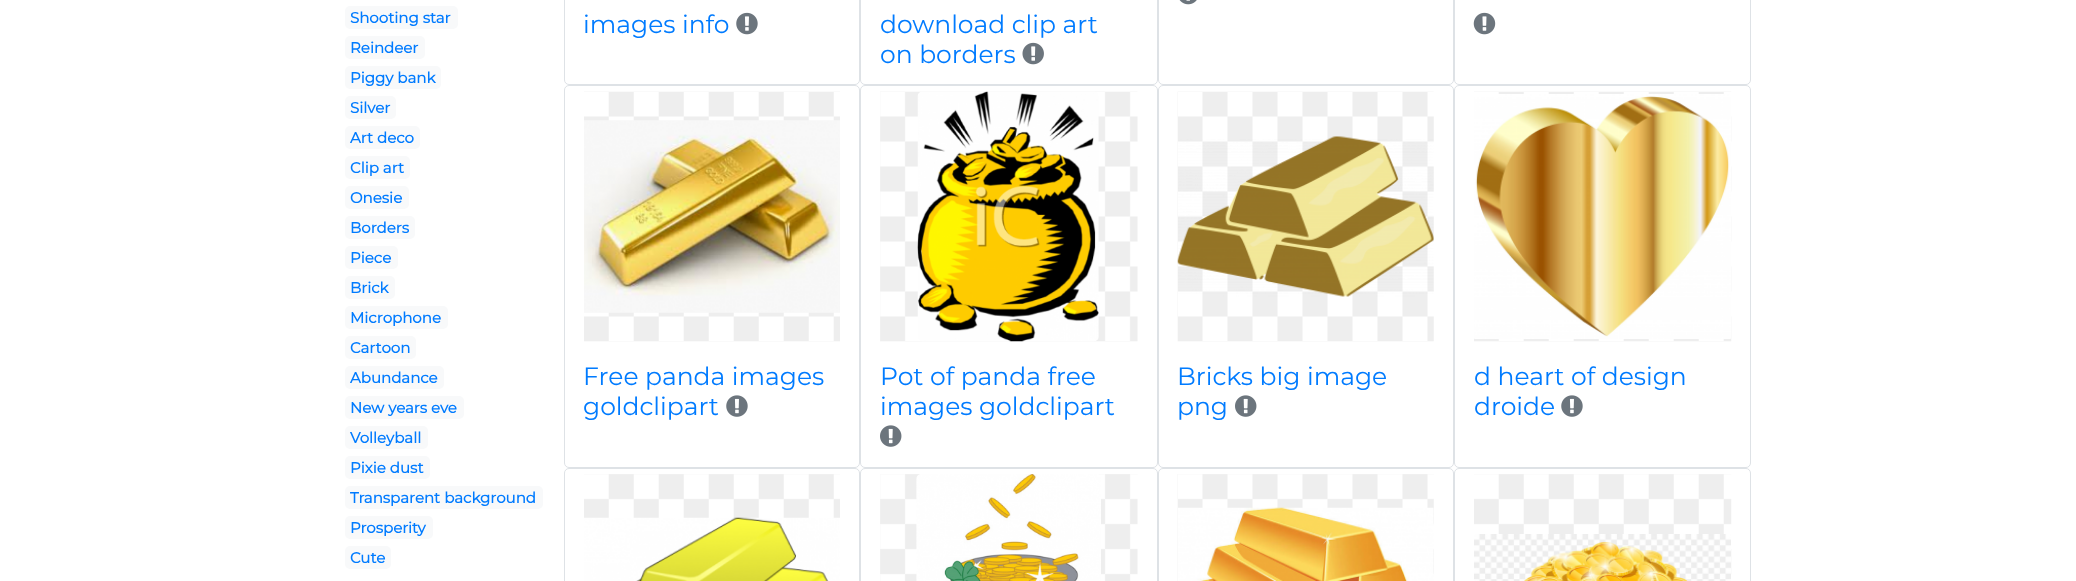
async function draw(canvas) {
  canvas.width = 2076;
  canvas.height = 581;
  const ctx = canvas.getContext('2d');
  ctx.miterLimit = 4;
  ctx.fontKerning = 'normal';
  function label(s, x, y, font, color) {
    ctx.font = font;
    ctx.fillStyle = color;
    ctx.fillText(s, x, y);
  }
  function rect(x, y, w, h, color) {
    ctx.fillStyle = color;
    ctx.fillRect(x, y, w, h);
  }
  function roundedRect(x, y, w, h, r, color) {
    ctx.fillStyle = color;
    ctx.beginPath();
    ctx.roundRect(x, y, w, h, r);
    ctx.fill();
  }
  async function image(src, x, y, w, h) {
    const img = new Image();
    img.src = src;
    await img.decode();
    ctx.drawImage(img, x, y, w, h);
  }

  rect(0, 0, 2076, 581, '#fff');
  roundedRect(345, 6, 113, 23, 5, '#f8f9fa');
  label('Shooting star', 350, 23, 'bold 15px Montserrat', '#007bff');
  roundedRect(345, 36, 80, 23, 5, '#f8f9fa');
  label('Reindeer', 350, 53, 'bold 15px Montserrat', '#007bff');
  roundedRect(345, 66, 96, 23, 5, '#f8f9fa');
  label('Piggy bank', 350, 83, 'bold 15px Montserrat', '#007bff');
  roundedRect(345, 96, 51, 23, 5, '#f8f9fa');
  label('Silver', 350, 113, 'bold 15px Montserrat', '#007bff');
  roundedRect(345, 126, 75, 23, 5, '#f8f9fa');
  label('Art deco', 350, 143, 'bold 15px Montserrat', '#007bff');
  roundedRect(345, 156, 65, 23, 5, '#f8f9fa');
  label('Clip art', 350, 173, 'bold 15px Montserrat', '#007bff');
  roundedRect(345, 186, 64, 23, 5, '#f8f9fa');
  label('Onesie', 350, 203, 'bold 15px Montserrat', '#007bff');
  roundedRect(345, 216, 70, 23, 5, '#f8f9fa');
  label('Borders', 350, 233, 'bold 15px Montserrat', '#007bff');
  roundedRect(345, 246, 53, 23, 5, '#f8f9fa');
  label('Piece', 350, 263, 'bold 15px Montserrat', '#007bff');
  roundedRect(345, 276, 50, 23, 5, '#f8f9fa');
  label('Brick', 350, 293, 'bold 15px Montserrat', '#007bff');
  roundedRect(345, 306, 103, 23, 5, '#f8f9fa');
  label('Microphone', 350, 323, 'bold 15px Montserrat', '#007bff');
  roundedRect(345, 336, 71, 23, 5, '#f8f9fa');
  label('Cartoon', 350, 353, 'bold 15px Montserrat', '#007bff');
  roundedRect(345, 366, 99, 23, 5, '#f8f9fa');
  label('Abundance', 350, 383, 'bold 15px Montserrat', '#007bff');
  roundedRect(345, 396, 119, 23, 5, '#f8f9fa');
  label('New years eve', 350, 413, 'bold 15px Montserrat', '#007bff');
  roundedRect(345, 426, 83, 23, 5, '#f8f9fa');
  label('Volleyball', 350, 443, 'bold 15px Montserrat', '#007bff');
  roundedRect(345, 456, 85, 23, 5, '#f8f9fa');
  label('Pixie dust', 350, 473, 'bold 15px Montserrat', '#007bff');
  roundedRect(345, 486, 198, 23, 5, '#f8f9fa');
  label('Transparent background', 350, 503, 'bold 15px Montserrat', '#007bff');
  roundedRect(345, 516, 88, 23, 5, '#f8f9fa');
  label('Prosperity', 350, 533, 'bold 15px Montserrat', '#007bff');
  roundedRect(345, 546, 46, 23, 5, '#f8f9fa');
  label('Cute', 350, 563, 'bold 15px Montserrat', '#007bff');
  ctx.beginPath();
  ctx.roundRect(564.5, -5.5, 295, 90, 4.5);
  ctx.strokeStyle = '#dee2e6';
  ctx.stroke();
  label('images info', 583, 33, '100 25px Montserrat', '#007bff');
  await image('assets/img1.png', 736, 12, 22, 23);
  ctx.beginPath();
  ctx.roundRect(860.5, -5.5, 297, 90, 4.5);
  ctx.stroke();
  label('download clip art', 880, 33, '100 25px Montserrat', '#007bff');
  label('on borders', 880, 63, '100 25px Montserrat', '#007bff');
  await image('assets/img2.png', 1022, 42, 22, 23);
  ctx.beginPath();
  ctx.roundRect(1158.5, -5.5, 295, 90, 4.5);
  ctx.stroke();
  await image('assets/img3.png', 1179, 0, 18, 5);
  ctx.beginPath();
  ctx.roundRect(1454.5, -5.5, 296, 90, 4.5);
  ctx.stroke();
  await image('assets/img4.png', 1473, 12, 23, 23);
  ctx.beginPath();
  ctx.roundRect(564.5, 85.5, 295, 382, 4.5);
  ctx.stroke();
  await image('assets/img5.png', 584, 91, 256, 251);
  await image('assets/img6.png', 584, 120, 256, 193);
  label('Free panda images', 583, 385, '100 25px Montserrat', '#007bff');
  label('goldclipart', 583, 415, '100 25px Montserrat', '#007bff');
  await image('assets/img7.png', 726, 395, 22, 22);
  ctx.beginPath();
  ctx.roundRect(860.5, 85.5, 297, 382, 4.5);
  ctx.stroke();
  await image('assets/img8.png', 880, 91, 258, 251);
  await image('assets/img9.png', 917, 91, 182, 251);
  label('Pot of panda free', 880, 385, '100 25px Montserrat', '#007bff');
  label('images goldclipart', 880, 415, '100 25px Montserrat', '#007bff');
  await image('assets/img10.png', 880, 425, 22, 22);
  ctx.beginPath();
  ctx.roundRect(1158.5, 85.5, 295, 382, 4.5);
  ctx.stroke();
  await image('assets/img11.png', 1177, 91, 257, 251);
  await image('assets/img12.png', 1177, 136, 257, 161);
  label('Bricks big image', 1177, 385, '100 25px Montserrat', '#007bff');
  label('png', 1177, 415, '100 25px Montserrat', '#007bff');
  await image('assets/img10.png', 1235, 395, 22, 22);
  ctx.beginPath();
  ctx.roundRect(1454.5, 85.5, 296, 382, 4.5);
  ctx.stroke();
  await image('assets/img13.png', 1474, 91, 258, 251);
  await image('assets/img14.png', 1474, 94, 257, 245);
  label('d heart of design', 1474, 385, '100 25px Montserrat', '#007bff');
  label('droide', 1474, 415, '100 25px Montserrat', '#007bff');
  await image('assets/img7.png', 1561, 395, 22, 22);
  ctx.beginPath();
  ctx.roundRect(564.5, 468.5, 295, 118, 4.5);
  ctx.stroke();
  await image('assets/img15.png', 584, 474, 256, 44);
  await image('assets/img16.png', 584, 517, 256, 64);
  ctx.beginPath();
  ctx.roundRect(860.5, 468.5, 297, 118, 4.5);
  ctx.stroke();
  await image('assets/img17.png', 880, 474, 258, 107);
  await image('assets/img18.png', 916, 474, 185, 107);
  ctx.beginPath();
  ctx.roundRect(1158.5, 468.5, 295, 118, 4.5);
  ctx.stroke();
  await image('assets/img19.png', 1177, 474, 257, 107);
  await image('assets/img20.png', 1178, 507, 256, 74);
  ctx.beginPath();
  ctx.roundRect(1454.5, 468.5, 296, 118, 4.5);
  ctx.stroke();
  await image('assets/img21.png', 1474, 474, 258, 107);
  await image('assets/img22.png', 1474, 534, 257, 47);
}

draw(document.querySelector('canvas'));
